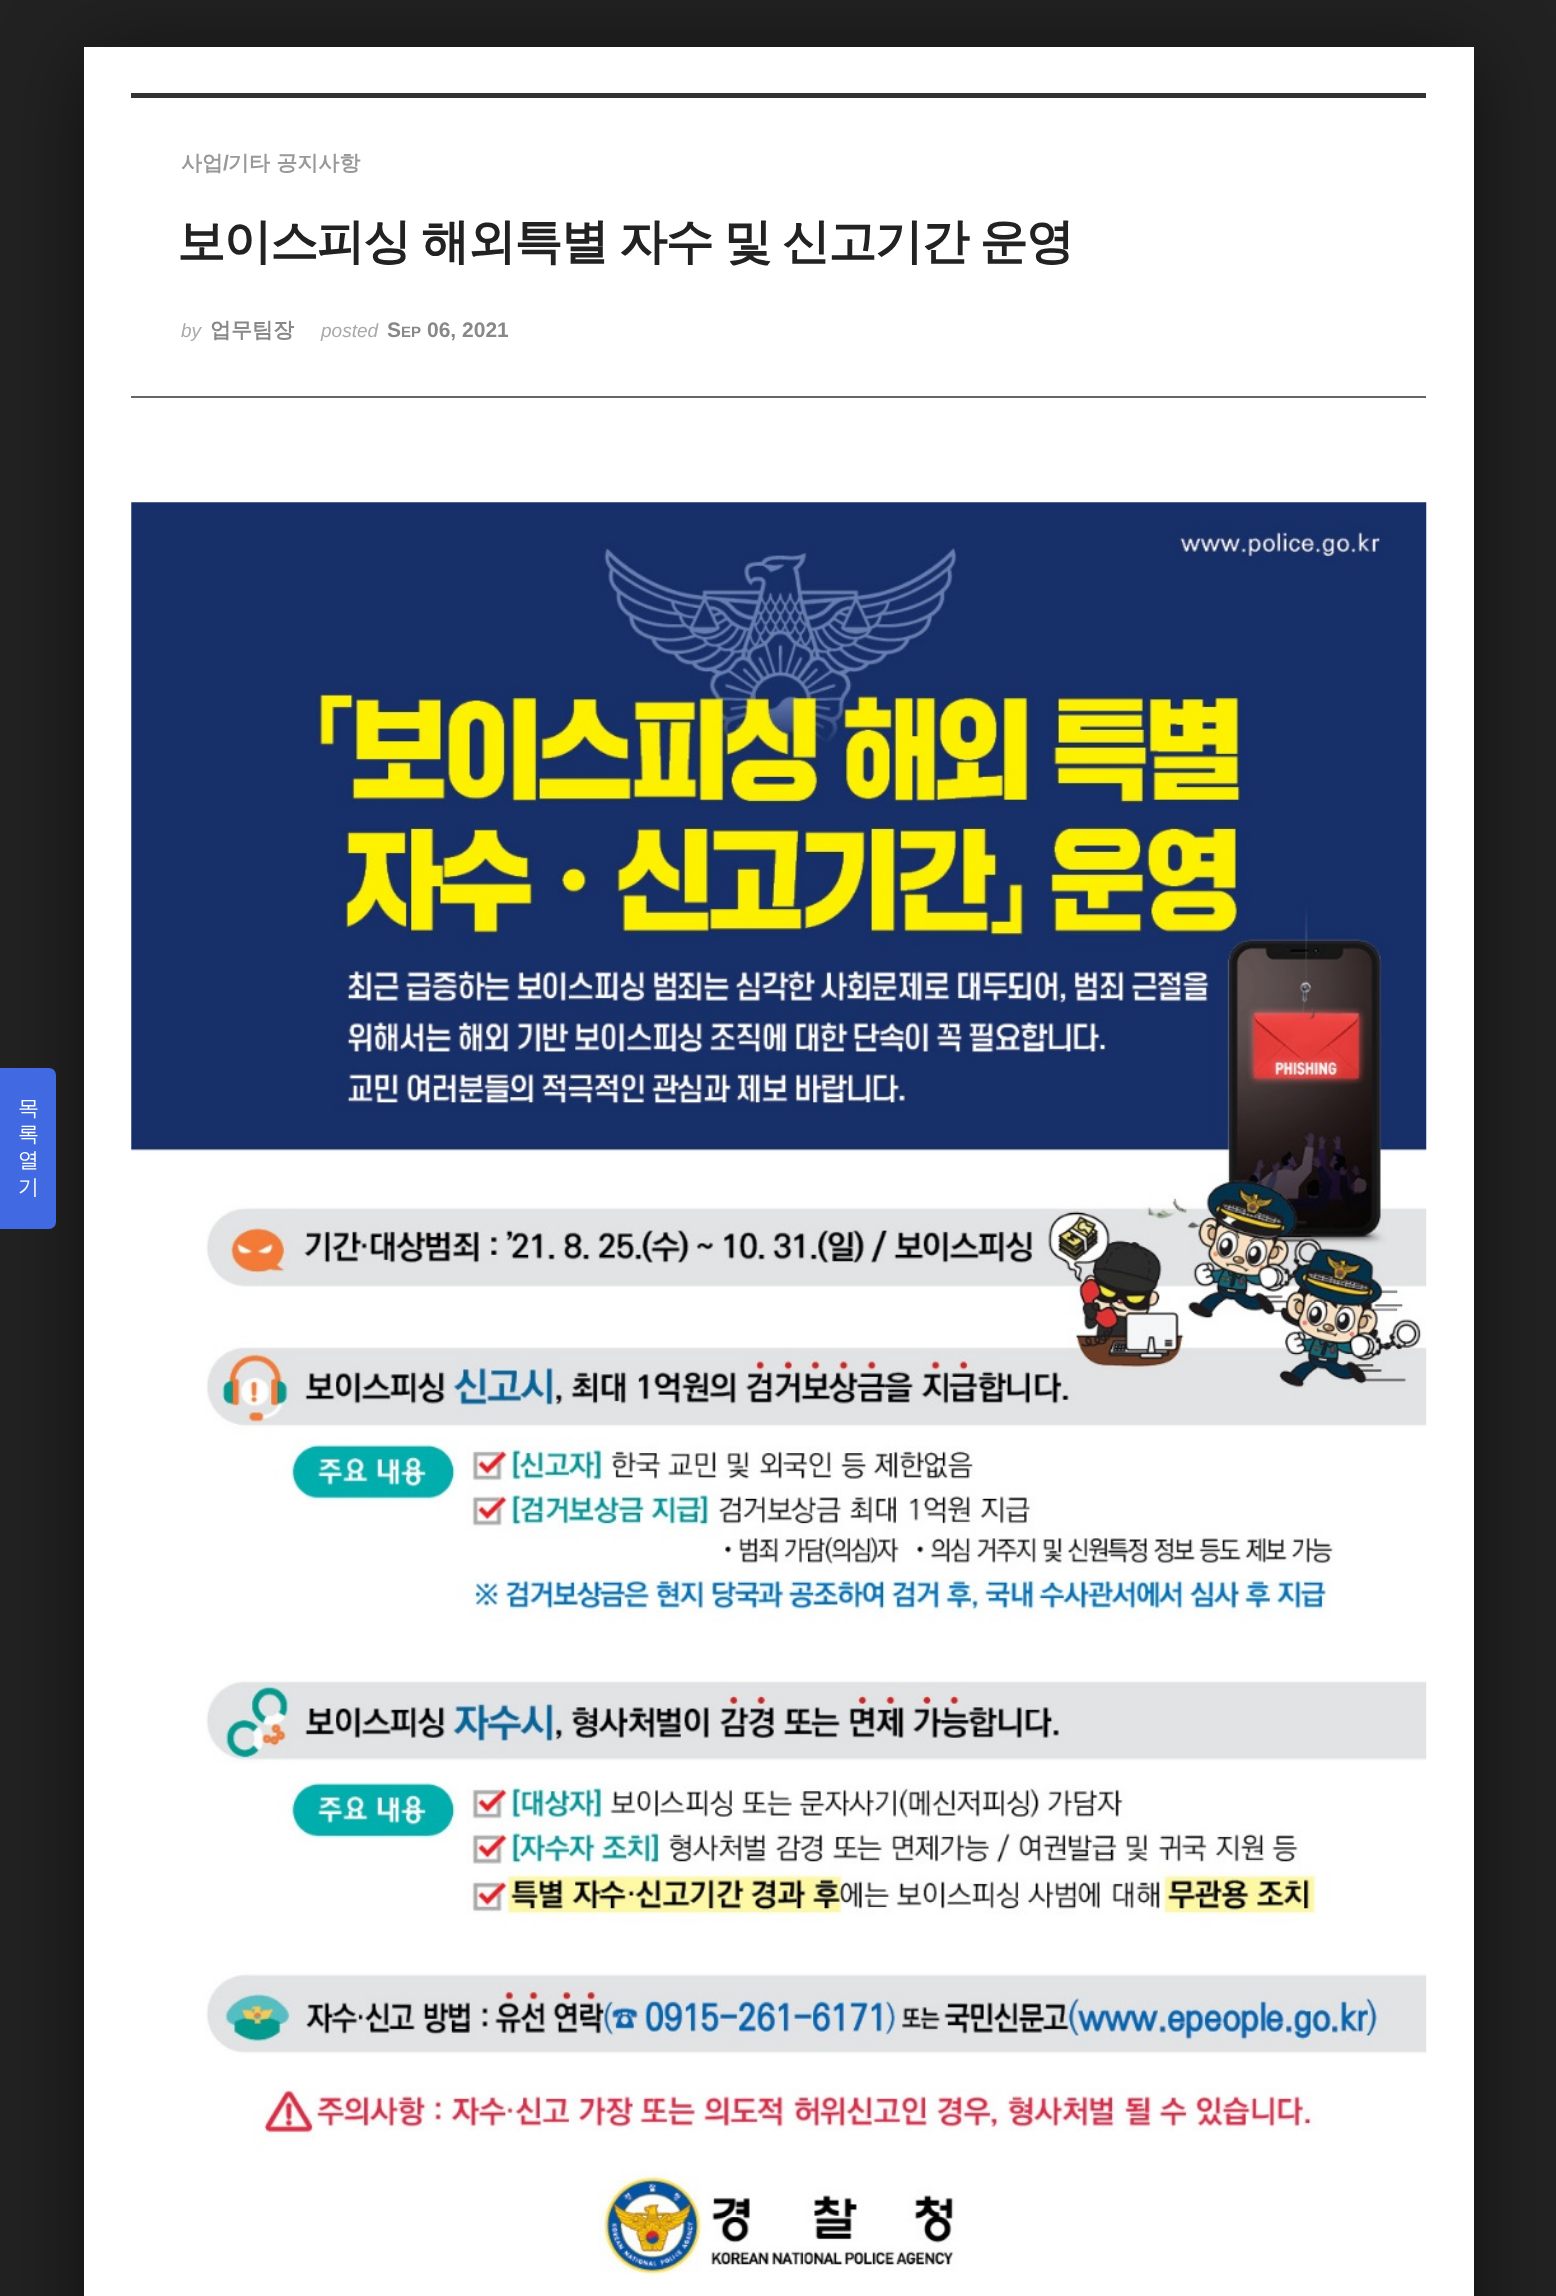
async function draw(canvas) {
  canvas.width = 1556;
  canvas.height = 2296;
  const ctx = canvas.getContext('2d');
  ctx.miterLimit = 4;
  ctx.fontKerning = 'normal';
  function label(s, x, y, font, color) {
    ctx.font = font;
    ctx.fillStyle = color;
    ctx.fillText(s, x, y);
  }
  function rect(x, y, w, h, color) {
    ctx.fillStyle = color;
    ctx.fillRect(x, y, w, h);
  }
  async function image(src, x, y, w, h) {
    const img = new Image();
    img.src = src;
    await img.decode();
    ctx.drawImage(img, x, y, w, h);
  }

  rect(0, 0, 1556, 2296, '#222');
  ctx.fillStyle = '#00000080';
  ctx.filter = 'blur(42px)';
  ctx.beginPath();
  ctx.rect(84, 54, 1390, 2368);
  ctx.fill();
  ctx.filter = 'none';
  rect(84, 47, 1390, 2249, '#fff');
  rect(131, 93, 1295, 5, '#333');
  rect(131, 396, 1295, 2, '#666');
  label('사업', 181, 170, 'bold 21px WenQuanYi Zen Hei', '#999');
  label('/', 223, 170, 'bold 21px Liberation Sans', '#999');
  label('기타 공지사항', 228, 170, 'bold 21px WenQuanYi Zen Hei', '#999');
  ctx.letterSpacing = '-1.75px';
  ctx.wordSpacing = '-1px';
  label('보이스피싱 해외특별 자수 및 신고기간 운영', 177, 258, 'bold 48.25px WenQuanYi Zen Hei', '#222');
  ctx.letterSpacing = '0px';
  ctx.wordSpacing = '0px';
  label('by', 181, 337, 'italic 19px Liberation Sans', '#aaa');
  label('업무팀장', 210, 337, 'bold 21px WenQuanYi Zen Hei', '#888');
  label('posted', 321, 337, 'italic 19px Liberation Sans', '#aaa');
  label('S', 387, 337, 'bold 21px Liberation Sans', '#888');
  label('EP', 401, 337, 'bold 15px Liberation Sans', '#888');
  label('06, 2021', 427, 337, 'bold 21px Liberation Sans', '#888');
  await image('assets/img1.png', 131, 502, 1296, 1779);
  ctx.fillStyle = '#4169e1';
  ctx.beginPath();
  ctx.roundRect(0, 1068, 56, 161, [0, 7, 7, 0]);
  ctx.fill();
  label('목', 18, 1115, '500 21px WenQuanYi Zen Hei', '#fff');
  label('록', 18, 1141, '500 21px WenQuanYi Zen Hei', '#fff');
  label('열', 18, 1167, '500 21px WenQuanYi Zen Hei', '#fff');
  label('기', 18, 1194, '500 21px WenQuanYi Zen Hei', '#fff');
}

draw(document.querySelector('canvas'));
